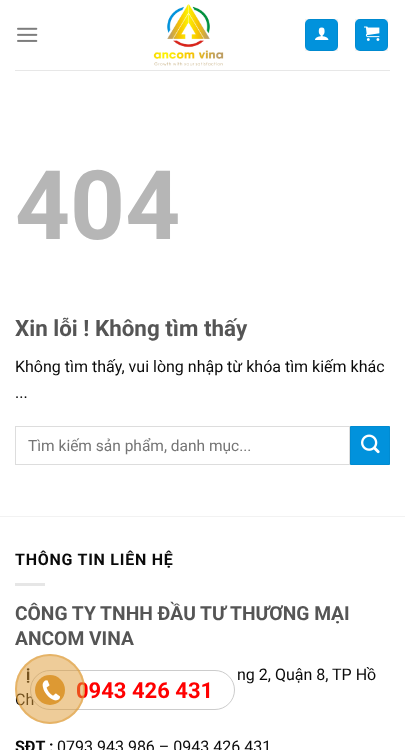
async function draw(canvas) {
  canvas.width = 405;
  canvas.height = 750;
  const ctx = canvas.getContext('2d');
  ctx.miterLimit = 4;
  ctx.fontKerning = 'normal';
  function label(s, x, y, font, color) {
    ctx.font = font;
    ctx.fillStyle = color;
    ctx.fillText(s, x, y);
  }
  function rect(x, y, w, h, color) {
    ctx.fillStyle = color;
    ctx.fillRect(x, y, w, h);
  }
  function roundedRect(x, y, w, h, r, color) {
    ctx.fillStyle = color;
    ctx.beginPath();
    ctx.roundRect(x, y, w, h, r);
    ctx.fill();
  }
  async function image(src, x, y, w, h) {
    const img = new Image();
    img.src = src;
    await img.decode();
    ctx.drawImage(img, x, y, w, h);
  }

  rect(0, 0, 405, 750, '#fff');
  await image('assets/img1.png', 17, 27, 21, 15);
  await image('assets/img2.png', 153, 4, 71, 62);
  roundedRect(305, 19, 33, 32, 5, '#0192dc');
  ctx.strokeStyle = '#0000000d';
  ctx.strokeRect(305.5, 19.5, 32, 31);
  await image('assets/img3.png', 315, 27, 14, 13);
  roundedRect(355, 19, 33, 32, 5, '#0192dc');
  ctx.strokeRect(355.5, 19.5, 32, 31);
  await image('assets/img4.png', 364, 26, 16, 15);
  rect(15, 70, 375, 1, '#e7e7e7');
  label('404', 15, 239, 'bold 96px Roboto', '#b6b6b6');
  label('Xin lỗi ! Không tìm thấy', 15, 336, 'bold 22.4px Roboto', '#555');
  label('Không tìm thấy, vui lòng nhập từ khóa tìm kiếm khác', 15, 372, '16px Roboto', '#0a0a0a');
  label('...', 15, 398, '16px Roboto', '#0a0a0a');
  ctx.strokeStyle = '#ddd';
  ctx.strokeRect(15.5, 426.5, 334, 38);
  label('Tìm kiếm sản phẩm, danh mục...', 28, 451, '15.5px Roboto', '#757575');
  ctx.fillStyle = '#0192dc';
  ctx.beginPath();
  ctx.rect(350.5, 426.5, 39, 38);
  ctx.fill();
  ctx.strokeStyle = '#018bd1';
  ctx.stroke();
  await image('assets/img5.png', 361, 434, 19, 20);
  rect(0, 516, 405, 1, '#f2f2f2');
  ctx.letterSpacing = '0.75px';
  label('THÔNG TIN LIÊN HỆ', 15, 565, 'bold 16px Roboto', '#0a0a0a');
  rect(15, 583, 30, 3, '#e6e6e6');
  ctx.letterSpacing = '0px';
  label('CÔNG TY TNHH ĐẦU TƯ THƯƠNG MẠI', 15, 620, 'bold 19.25px Roboto', '#555');
  label('ANCOM VINA', 15, 645, 'bold 19.25px Roboto', '#555');
  label('ị', 26, 680, 'bold 16px Roboto', '#0a0a0a');
  label('ng 2, Quận 8, TP Hồ', 237, 680, '16px Roboto', '#0a0a0a');
  label('Ch', 15, 705, '16px Roboto', '#0a0a0a');
  label('SĐT :', 15, 752, 'bold 16px Roboto', '#0a0a0a');
  label('0793 943 986 – 0943 426 431', 57, 752, '16px Roboto', '#0a0a0a');
  ctx.fillStyle = '#fff';
  ctx.beginPath();
  ctx.roundRect(30.5, 670.5, 204, 39, 19.5);
  ctx.fill();
  ctx.strokeStyle = '#ccc';
  ctx.stroke();
  label('0943 426 431', 76, 698, 'bold 22px Roboto', '#f00');
  ctx.fillStyle = '#dd993380';
  ctx.beginPath();
  ctx.arc(50, 689, 35, 0, 2 * Math.PI);
  ctx.fill();
  ctx.beginPath();
  ctx.arc(50, 689, 34, 0, 2 * Math.PI);
  ctx.strokeStyle = '#dd993380';
  ctx.lineWidth = 2;
  ctx.stroke();
  ctx.fillStyle = '#d93';
  ctx.beginPath();
  ctx.arc(50, 690, 15, 0, 2 * Math.PI);
  ctx.fill();
  await image('assets/img6.png', 42, 680, 18, 21);
}

draw(document.querySelector('canvas'));
